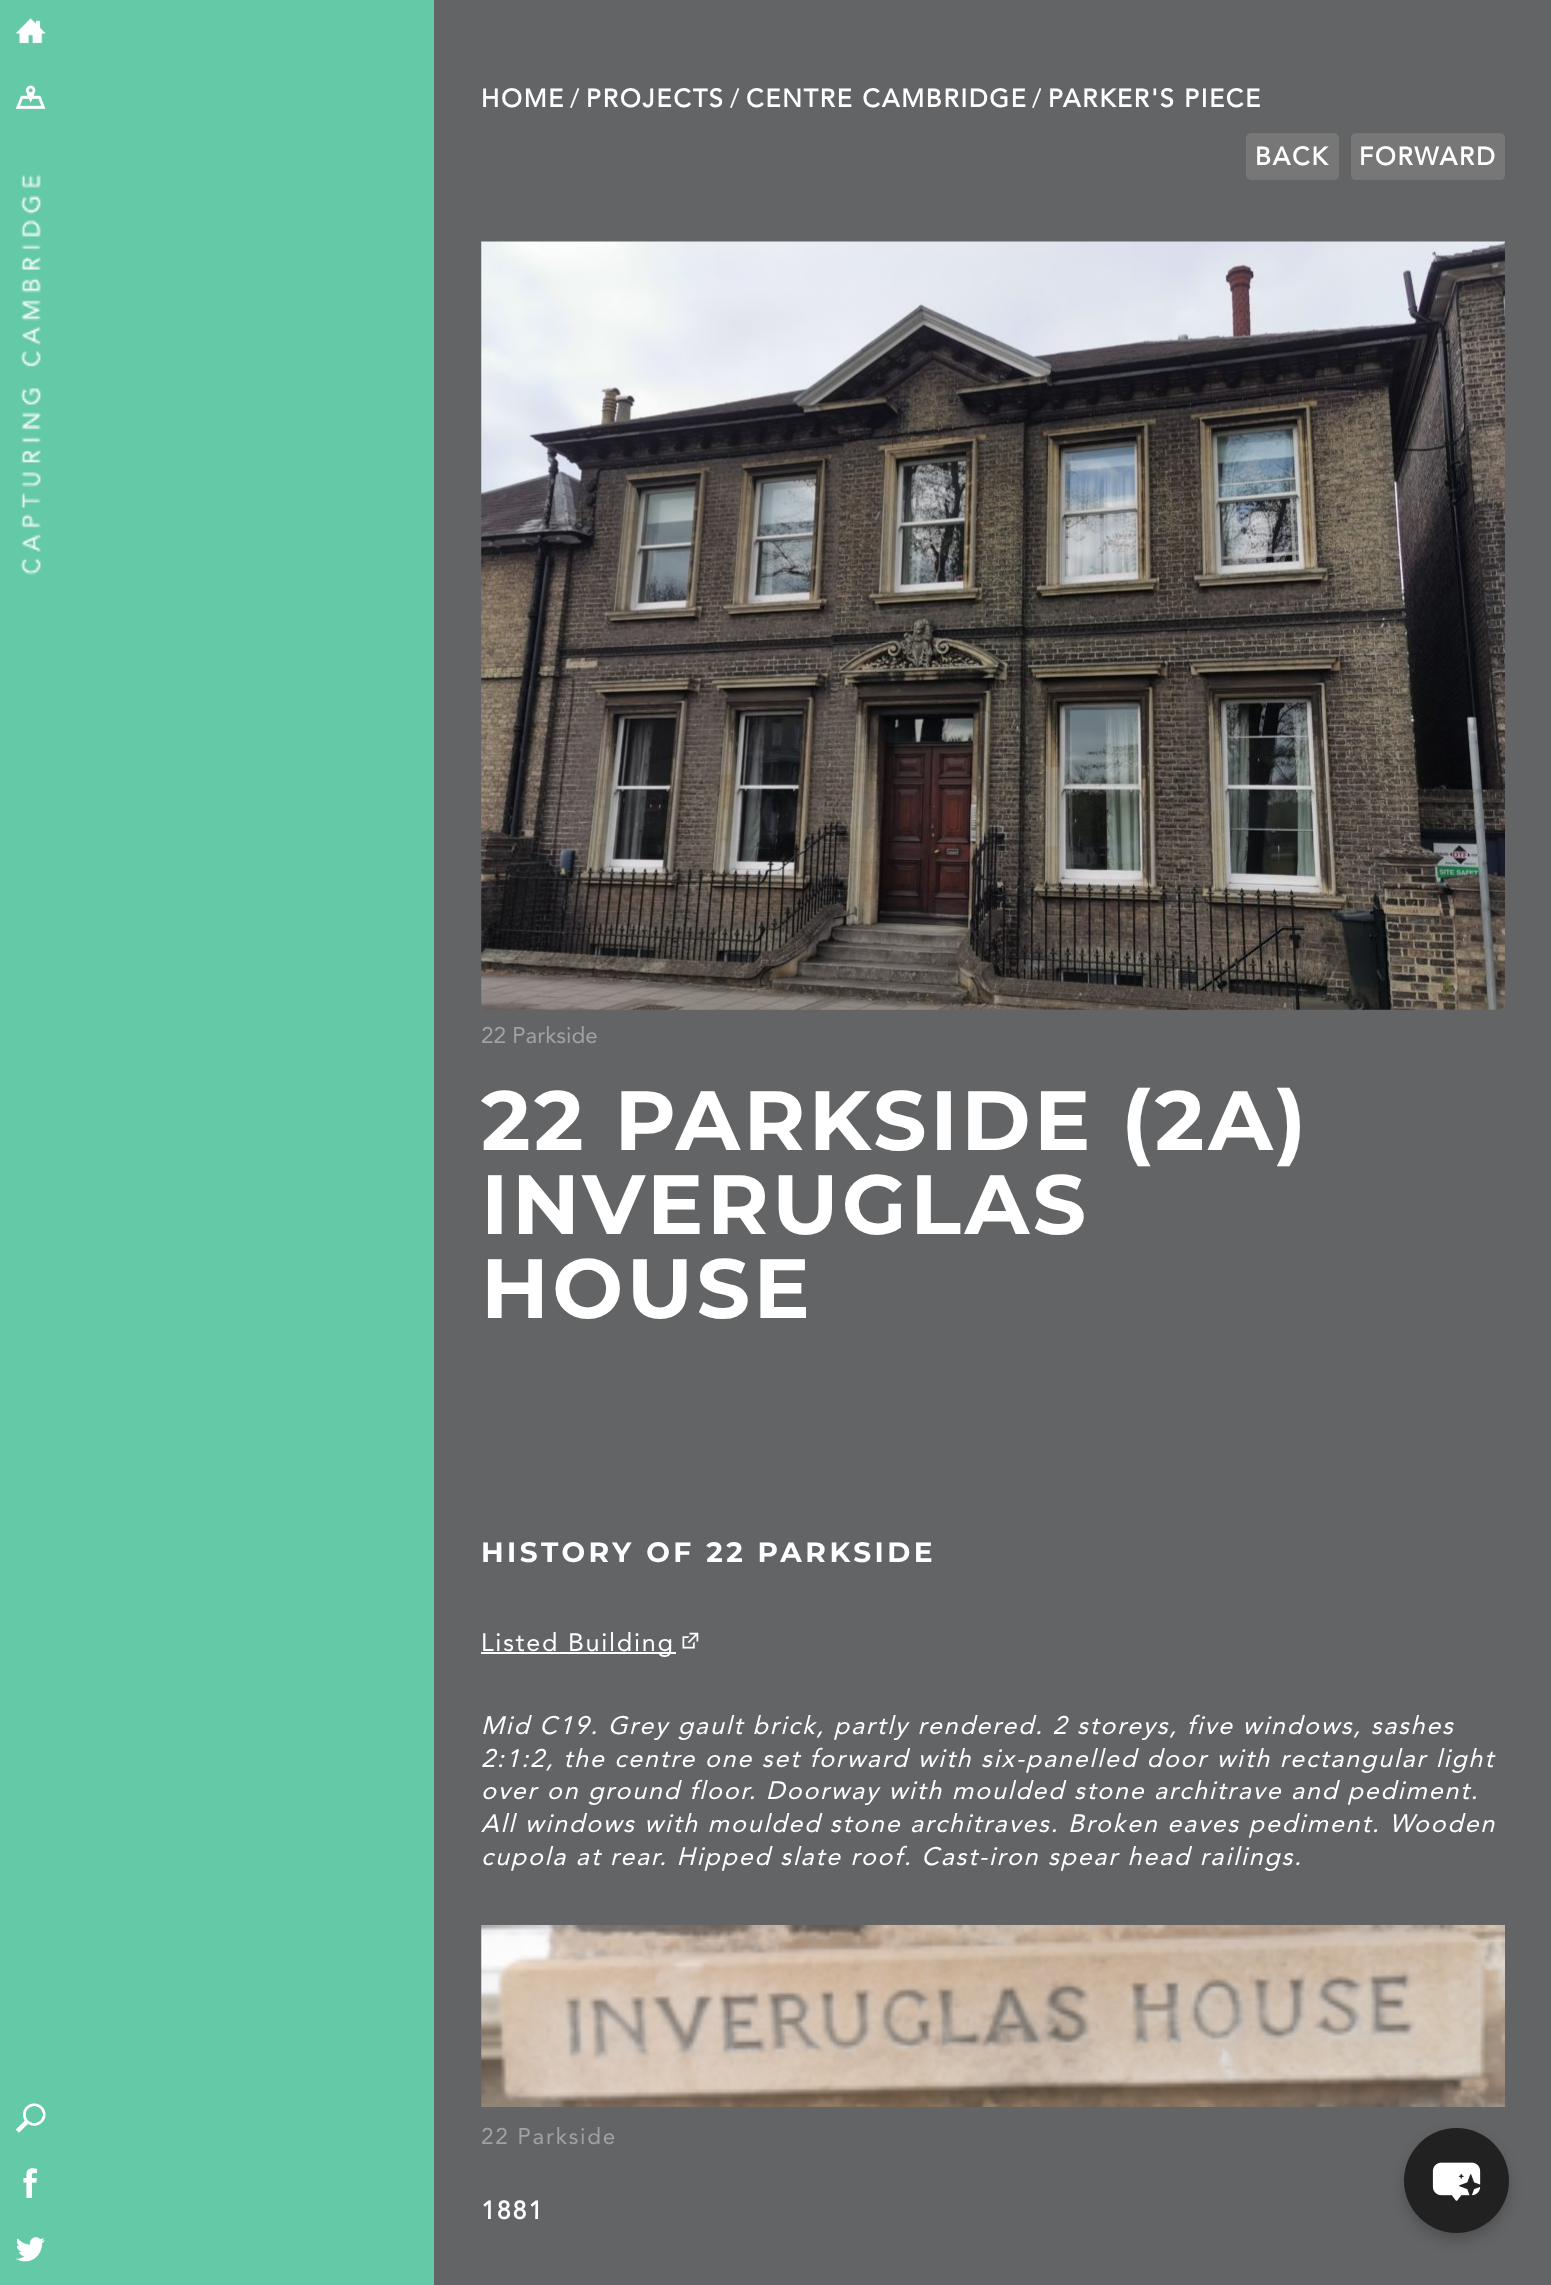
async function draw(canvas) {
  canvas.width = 1551;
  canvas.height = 2285;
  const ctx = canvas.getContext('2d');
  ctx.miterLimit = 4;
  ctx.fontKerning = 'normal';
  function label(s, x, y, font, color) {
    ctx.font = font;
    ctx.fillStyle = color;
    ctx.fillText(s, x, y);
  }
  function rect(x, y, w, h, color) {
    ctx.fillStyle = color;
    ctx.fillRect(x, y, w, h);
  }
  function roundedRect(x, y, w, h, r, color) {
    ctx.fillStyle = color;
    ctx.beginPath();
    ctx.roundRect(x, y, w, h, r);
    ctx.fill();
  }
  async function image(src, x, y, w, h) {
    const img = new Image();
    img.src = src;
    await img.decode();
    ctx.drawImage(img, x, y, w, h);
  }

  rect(0, 0, 1551, 2285, '#63c9a6');
  await image('assets/img1.png', 15, 18, 31, 26);
  await image('assets/img2.png', 15, 85, 31, 24);
  await image('assets/img3.png', 20, 174, 21, 401);
  await image('assets/img4.png', 15, 2103, 31, 30);
  await image('assets/img5.png', 23, 2168, 15, 30);
  await image('assets/img6.png', 15, 2237, 30, 25);
  rect(434, 0, 1117, 2285, '#636466');
  ctx.letterSpacing = '1.75px';
  label('HOME', 481, 107, 'bold 25.2px Avenir', '#fff');
  label('/', 570, 107, '25.2px Avenir', '#fff');
  label('PROJECTS', 586, 107, 'bold 25.2px Avenir', '#fff');
  label('/', 730, 107, '25.2px Avenir', '#fff');
  label('CENTRE CAMBRIDGE', 746, 107, 'bold 25.2px Avenir', '#fff');
  label('/', 1032, 107, '25.2px Avenir', '#fff');
  label('PARKER\'S PIECE', 1048, 107, 'bold 25.2px Avenir', '#fff');
  roundedRect(1246, 133, 93, 47, 5, '#777');
  label('BACK', 1255, 165, 'bold 25.2px Avenir', '#fff');
  roundedRect(1351, 133, 154, 47, 5, '#777');
  label('FORWARD', 1359, 165, 'bold 25.2px Avenir', '#fff');
  await image('assets/img7.png', 481, 241, 1024, 769);
  ctx.letterSpacing = '0px';
  label('22 Parkside', 481, 1043, '22.5px Avenir', '#a1a2a3');
  ctx.letterSpacing = '3.5px';
  label('22 PARKSIDE (2A)', 481, 1150, 'bold 84px Montserrat', '#fff');
  label('INVERUGLAS', 481, 1234, 'bold 84px Montserrat', '#fff');
  label('HOUSE', 481, 1318, 'bold 84px Montserrat', '#fff');
  label('HISTORY OF 22 PARKSIDE', 481, 1562, 'bold 28px Montserrat', '#fff');
  rect(481, 1652, 195, 2, '#fff');
  ctx.letterSpacing = '1.75px';
  label('Listed Building', 481, 1651, '25.2px Avenir', '#fff');
  await image('assets/img8.png', 682, 1632, 17, 17);
  label('Mid C19. Grey gault brick, partly rendered. 2 storeys, five windows, sashes', 481, 1734, 'italic 25.2px Avenir', '#fff');
  label('2:1:2, the centre one set forward with six-panelled door with rectangular light', 481, 1767, 'italic 25.2px Avenir', '#fff');
  label('over on ground floor. Doorway with moulded stone architrave and pediment.', 481, 1799, 'italic 25.2px Avenir', '#fff');
  label('All windows with moulded stone architraves. Broken eaves pediment. Wooden', 481, 1832, 'italic 25.2px Avenir', '#fff');
  label('cupola at rear. Hipped slate roof. Cast-iron spear head railings.', 481, 1865, 'italic 25.2px Avenir', '#fff');
  await image('assets/img9.png', 481, 1925, 1024, 182);
  label('22 Parkside', 481, 2144, '22.5px Avenir', '#a1a2a3');
  label('1881', 481, 2219, 'bold 25.2px Avenir', '#fff');
  ctx.fillStyle = '#00000033';
  ctx.filter = 'blur(7px)';
  ctx.beginPath();
  ctx.roundRect(1404, 2135, 105, 105, 52.5);
  ctx.fill();
  ctx.filter = 'none';
  ctx.fillStyle = '#212121';
  ctx.beginPath();
  ctx.arc(1456.5, 2180.5, 52.5, 0, 2 * Math.PI);
  ctx.fill();
  await image('assets/img10.png', 1432, 2162, 49, 39);
}

draw(document.querySelector('canvas'));
